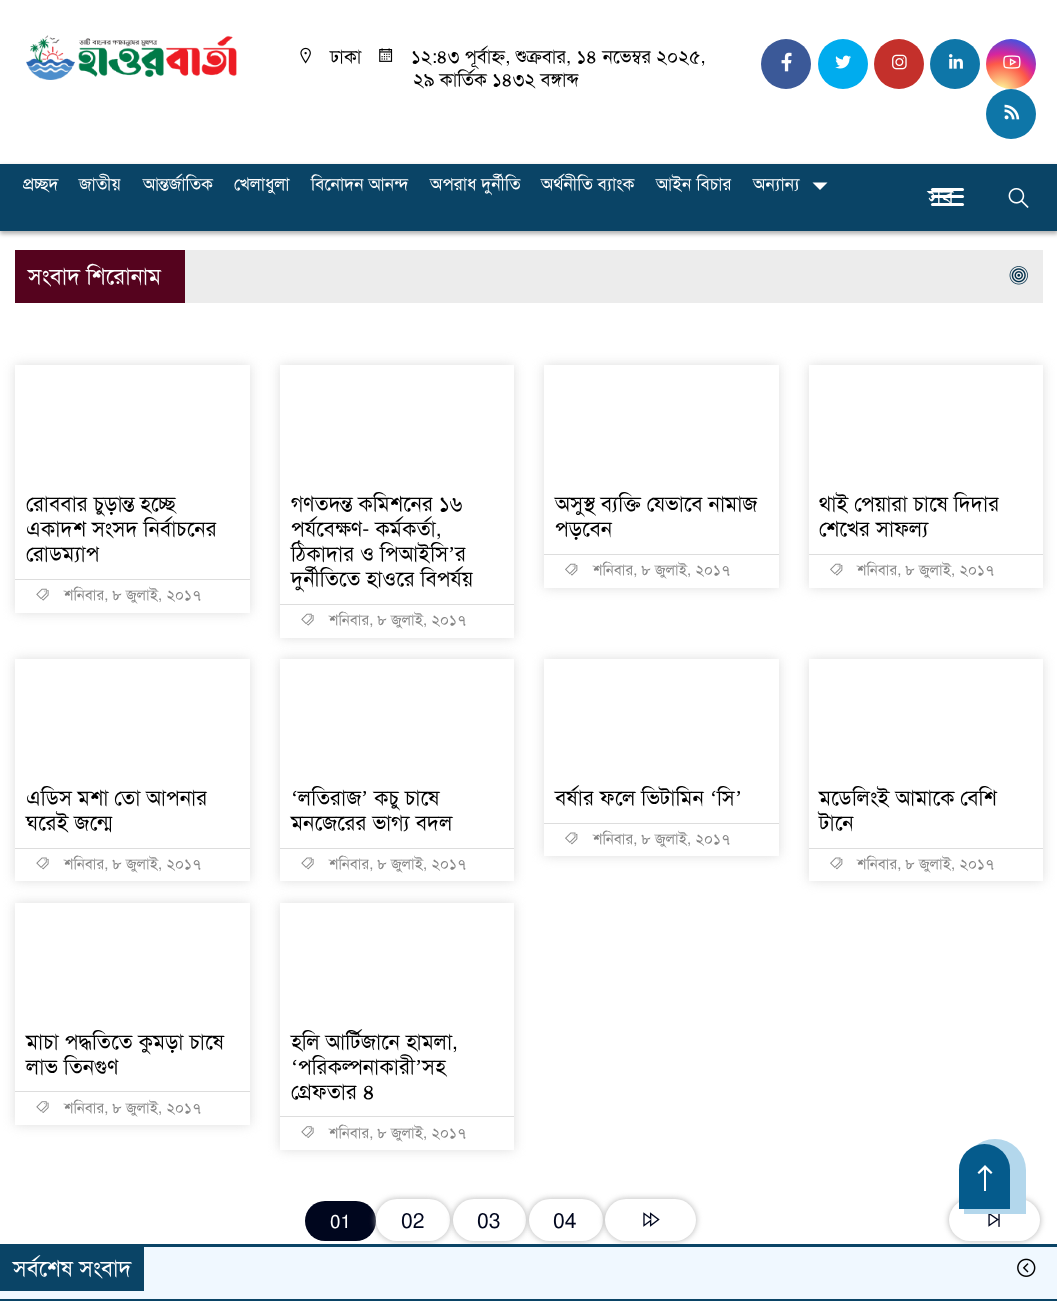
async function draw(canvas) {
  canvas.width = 1057;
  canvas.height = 1301;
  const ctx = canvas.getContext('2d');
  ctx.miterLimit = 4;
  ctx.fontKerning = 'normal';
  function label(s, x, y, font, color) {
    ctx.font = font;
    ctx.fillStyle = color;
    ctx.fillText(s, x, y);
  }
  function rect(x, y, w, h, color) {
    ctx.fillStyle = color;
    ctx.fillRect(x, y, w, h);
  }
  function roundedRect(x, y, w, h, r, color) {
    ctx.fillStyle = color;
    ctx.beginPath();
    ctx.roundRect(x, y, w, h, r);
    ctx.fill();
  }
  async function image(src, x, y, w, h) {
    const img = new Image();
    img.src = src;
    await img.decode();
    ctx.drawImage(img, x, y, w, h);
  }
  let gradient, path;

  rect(0, 0, 1057, 1301, '#fff');
  await image('assets/img1.png', 26, 35, 211, 45);
  await image('assets/img2.png', 300, 47, 11, 17);
  label('ঢাকা', 330, 63, '18.75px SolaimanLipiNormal', '#000');
  await image('assets/img3.png', 379, 48, 14, 14);
  label('১২:৪৩ পূর্বাহ্ন, শুক্রবার, ১৪ নভেম্বর ২০২৫,', 411, 63, '18.75px SolaimanLipiNormal', '#000');
  label('২৯ কার্তিক ১৪৩২ বঙ্গাব্দ', 413, 86, '18.75px SolaimanLipiNormal', '#000');
  ctx.fillStyle = '#3b5998';
  ctx.beginPath();
  ctx.arc(786, 64, 25, 0, 2 * Math.PI);
  ctx.fill();
  await image('assets/img4.png', 781, 52, 11, 20);
  ctx.fillStyle = '#00acee';
  ctx.beginPath();
  ctx.arc(843, 64, 25, 0, 2 * Math.PI);
  ctx.fill();
  await image('assets/img5.png', 835, 55, 16, 14);
  ctx.fillStyle = '#c4302b';
  ctx.beginPath();
  ctx.arc(899, 64, 25, 0, 2 * Math.PI);
  ctx.fill();
  await image('assets/img6.png', 892, 54, 15, 16);
  ctx.fillStyle = '#0e76a8';
  ctx.beginPath();
  ctx.arc(955, 64, 25, 0, 2 * Math.PI);
  ctx.fill();
  await image('assets/img7.png', 949, 54, 14, 15);
  gradient = ctx.createRadialGradient(1001, 92, 0, 1001, 92, 64);
  gradient.addColorStop(0, '#fdf497');
  gradient.addColorStop(0.05, '#fdf497');
  gradient.addColorStop(0.45, '#fd5949');
  gradient.addColorStop(0.6, '#d6249f');
  gradient.addColorStop(0.9, '#285aeb');
  ctx.fillStyle = gradient;
  ctx.beginPath();
  ctx.arc(1011, 64, 25, 0, 2 * Math.PI);
  ctx.fill();
  await image('assets/img8.png', 1003, 55, 18, 14);
  ctx.fillStyle = '#0e76a8';
  ctx.beginPath();
  ctx.arc(1011, 114, 25, 0, 2 * Math.PI);
  ctx.fill();
  await image('assets/img9.png', 1004, 104, 16, 16);
  ctx.fillStyle = '#0000004d';
  ctx.filter = 'blur(2px)';
  ctx.beginPath();
  ctx.rect(0, 166, 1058, 68);
  ctx.fill();
  ctx.filter = 'none';
  rect(0, 164, 1057, 67, '#0a4466');
  label('প্রচ্ছদ', 23, 190, '17.5px SolaimanLipiNormal', '#fff');
  label('জাতীয়', 79, 190, '17.5px SolaimanLipiNormal', '#fff');
  label('আন্তর্জাতিক', 143, 190, '17.5px SolaimanLipiNormal', '#fff');
  label('খেলাধুলা', 234, 190, '17.5px SolaimanLipiNormal', '#fff');
  label('বিনোদন আনন্দ', 311, 190, '17.5px SolaimanLipiNormal', '#fff');
  label('অপরাধ দুর্নীতি', 430, 190, '17.5px SolaimanLipiNormal', '#fff');
  label('অর্থনীতি ব্যাংক', 541, 190, '17.5px SolaimanLipiNormal', '#fff');
  label('আইন বিচার', 656, 190, '17.5px SolaimanLipiNormal', '#fff');
  label('অন্যান্য', 753, 190, '17.5px SolaimanLipiNormal', '#fff');
  path = new Path2D('M812.5 182.5H827.5L820 190Z');
  ctx.fill(path);
  roundedRect(931, 188, 33, 3, 1.5, '#fff');
  roundedRect(931, 195, 33, 3, 1.5, '#fff');
  roundedRect(931, 203, 33, 3, 1.5, '#fff');
  label('সব', 928, 205, '22.5px SolaimanLipiNormal', '#fff');
  await image('assets/img10.png', 1008, 188, 21, 20);
  rect(15, 250, 170, 53, '#55031e');
  label('সংবাদ শিরোনাম', 28, 284, '22.5px SolaimanLipiNormal', '#fff');
  rect(185, 250, 858, 53, '#ececec');
  await image('assets/img11.png', 1009, 266, 19, 19);
  ctx.save();
  path = new Path2D('M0 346H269V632H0ZM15 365H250V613H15Z');
  ctx.clip(path, 'evenodd');
  ctx.fillStyle = '#ddd';
  ctx.filter = 'blur(6px)';
  ctx.beginPath();
  ctx.rect(15, 365, 235, 248);
  ctx.fill();
  ctx.filter = 'none';
  ctx.restore();
  label('রোববার চুড়ান্ত হচ্ছে', 26, 511, '21.25px SolaimanLipiNormal', '#000');
  label('একাদশ সংসদ নির্বাচনের', 26, 536, '21.25px SolaimanLipiNormal', '#000');
  label('রোডম্যাপ', 26, 561, '21.25px SolaimanLipiNormal', '#000');
  rect(15, 579, 235, 1, '#ddd');
  await image('assets/img12.png', 36, 588, 13, 13);
  label('শনিবার, ৮ জুলাই, ২০১৭', 64, 600, '15px SolaimanLipiNormal', '#868686');
  ctx.save();
  path = new Path2D('M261 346H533V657H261ZM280 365H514V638H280Z');
  ctx.clip(path, 'evenodd');
  ctx.fillStyle = '#ddd';
  ctx.filter = 'blur(6px)';
  ctx.beginPath();
  ctx.rect(280, 365, 234, 273);
  ctx.fill();
  ctx.filter = 'none';
  ctx.restore();
  label('গণতদন্ত কমিশনের ১৬', 291, 511, '21.25px SolaimanLipiNormal', '#000');
  label('পর্যবেক্ষণ- কর্মকর্তা,', 291, 536, '21.25px SolaimanLipiNormal', '#000');
  label('ঠিকাদার ও পিআইসি', 291, 561, '21.25px SolaimanLipiNormal', '#000');
  label('’', 448, 561, '21.25px Liberation Serif', '#000');
  label('র', 455, 561, '21.25px SolaimanLipiNormal', '#000');
  label('দুর্নীতিতে হাওরে বিপর্যয়', 291, 586, '21.25px SolaimanLipiNormal', '#000');
  rect(280, 604, 234, 1, '#ddd');
  await image('assets/img12.png', 301, 613, 13, 13);
  label('শনিবার, ৮ জুলাই, ২০১৭', 329, 625, '15px SolaimanLipiNormal', '#868686');
  ctx.save();
  path = new Path2D('M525 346H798V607H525ZM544 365H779V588H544Z');
  ctx.clip(path, 'evenodd');
  ctx.fillStyle = '#ddd';
  ctx.filter = 'blur(6px)';
  ctx.beginPath();
  ctx.rect(544, 365, 235, 223);
  ctx.fill();
  ctx.filter = 'none';
  ctx.restore();
  label('অসুস্থ ব্যক্তি যেভাবে নামাজ', 555, 511, '21.25px SolaimanLipiNormal', '#000');
  label('পড়বেন', 555, 536, '21.25px SolaimanLipiNormal', '#000');
  rect(544, 554, 235, 1, '#ddd');
  await image('assets/img13.png', 565, 563, 13, 13);
  label('শনিবার, ৮ জুলাই, ২০১৭', 593, 575, '15px SolaimanLipiNormal', '#868686');
  ctx.save();
  path = new Path2D('M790 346H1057V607H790ZM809 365H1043V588H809Z');
  ctx.clip(path, 'evenodd');
  ctx.fillStyle = '#ddd';
  ctx.filter = 'blur(6px)';
  ctx.beginPath();
  ctx.rect(809, 365, 234, 223);
  ctx.fill();
  ctx.filter = 'none';
  ctx.restore();
  label('থাই পেয়ারা চাষে দিদার', 819, 511, '21.25px SolaimanLipiNormal', '#000');
  label('শেখের সাফল্য', 819, 536, '21.25px SolaimanLipiNormal', '#000');
  rect(809, 554, 234, 1, '#ddd');
  await image('assets/img13.png', 830, 563, 13, 13);
  label('শনিবার, ৮ জুলাই, ২০১৭', 857, 575, '15px SolaimanLipiNormal', '#868686');
  ctx.save();
  path = new Path2D('M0 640H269V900H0ZM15 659H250V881H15Z');
  ctx.clip(path, 'evenodd');
  ctx.fillStyle = '#ddd';
  ctx.filter = 'blur(6px)';
  ctx.beginPath();
  ctx.rect(15, 659, 235, 222);
  ctx.fill();
  ctx.filter = 'none';
  ctx.restore();
  label('এডিস মশা তো আপনার', 26, 805, '21.25px SolaimanLipiNormal', '#000');
  label('ঘরেই জন্মে', 26, 830, '21.25px SolaimanLipiNormal', '#000');
  rect(15, 848, 235, 1, '#ddd');
  await image('assets/img14.png', 36, 857, 13, 13);
  label('শনিবার, ৮ জুলাই, ২০১৭', 64, 869, '15px SolaimanLipiNormal', '#868686');
  ctx.save();
  path = new Path2D('M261 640H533V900H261ZM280 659H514V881H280Z');
  ctx.clip(path, 'evenodd');
  ctx.fillStyle = '#ddd';
  ctx.filter = 'blur(6px)';
  ctx.beginPath();
  ctx.rect(280, 659, 234, 222);
  ctx.fill();
  ctx.filter = 'none';
  ctx.restore();
  label('‘', 291, 805, '21.25px Liberation Serif', '#000');
  label('লতিরাজ', 298, 805, '21.25px SolaimanLipiNormal', '#000');
  label('’', 361, 805, '21.25px Liberation Serif', '#000');
  label('কচু চাষে', 374, 805, '21.25px SolaimanLipiNormal', '#000');
  label('মনজেরের ভাগ্য বদল', 291, 830, '21.25px SolaimanLipiNormal', '#000');
  rect(280, 848, 234, 1, '#ddd');
  await image('assets/img14.png', 301, 857, 13, 13);
  label('শনিবার, ৮ জুলাই, ২০১৭', 329, 869, '15px SolaimanLipiNormal', '#868686');
  ctx.save();
  path = new Path2D('M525 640H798V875H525ZM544 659H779V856H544Z');
  ctx.clip(path, 'evenodd');
  ctx.fillStyle = '#ddd';
  ctx.filter = 'blur(6px)';
  ctx.beginPath();
  ctx.rect(544, 659, 235, 197);
  ctx.fill();
  ctx.filter = 'none';
  ctx.restore();
  label('বর্ষার ফলে ভিটামিন', 555, 805, '21.25px SolaimanLipiNormal', '#000');
  label('‘', 710, 805, '21.25px Liberation Serif', '#000');
  label('সি', 717, 805, '21.25px SolaimanLipiNormal', '#000');
  label('’', 735, 805, '21.25px Liberation Serif', '#000');
  rect(544, 823, 235, 1, '#ddd');
  await image('assets/img15.png', 565, 832, 13, 13);
  label('শনিবার, ৮ জুলাই, ২০১৭', 593, 844, '15px SolaimanLipiNormal', '#868686');
  ctx.save();
  path = new Path2D('M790 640H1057V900H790ZM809 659H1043V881H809Z');
  ctx.clip(path, 'evenodd');
  ctx.fillStyle = '#ddd';
  ctx.filter = 'blur(6px)';
  ctx.beginPath();
  ctx.rect(809, 659, 234, 222);
  ctx.fill();
  ctx.filter = 'none';
  ctx.restore();
  label('মডেলিংই আমাকে বেশি', 819, 805, '21.25px SolaimanLipiNormal', '#000');
  label('টানে', 819, 830, '21.25px SolaimanLipiNormal', '#000');
  rect(809, 848, 234, 1, '#ddd');
  await image('assets/img15.png', 830, 857, 13, 13);
  label('শনিবার, ৮ জুলাই, ২০১৭', 857, 869, '15px SolaimanLipiNormal', '#868686');
  ctx.save();
  path = new Path2D('M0 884H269V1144H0ZM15 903H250V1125H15Z');
  ctx.clip(path, 'evenodd');
  ctx.fillStyle = '#ddd';
  ctx.filter = 'blur(6px)';
  ctx.beginPath();
  ctx.rect(15, 903, 235, 222);
  ctx.fill();
  ctx.filter = 'none';
  ctx.restore();
  label('মাচা পদ্ধতিতে কুমড়া চাষে', 26, 1049, '21.25px SolaimanLipiNormal', '#000');
  label('লাভ তিনগুণ', 26, 1074, '21.25px SolaimanLipiNormal', '#000');
  rect(15, 1091, 235, 1, '#ddd');
  await image('assets/img16.png', 36, 1101, 13, 12);
  label('শনিবার, ৮ জুলাই, ২০১৭', 64, 1113, '15px SolaimanLipiNormal', '#868686');
  ctx.save();
  path = new Path2D('M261 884H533V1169H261ZM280 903H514V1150H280Z');
  ctx.clip(path, 'evenodd');
  ctx.fillStyle = '#ddd';
  ctx.filter = 'blur(6px)';
  ctx.beginPath();
  ctx.rect(280, 903, 234, 247);
  ctx.fill();
  ctx.filter = 'none';
  ctx.restore();
  label('হলি আর্টিজানে হামলা,', 291, 1049, '21.25px SolaimanLipiNormal', '#000');
  label('‘', 291, 1074, '21.25px Liberation Serif', '#000');
  label('পরিকল্পনাকারী', 298, 1074, '21.25px SolaimanLipiNormal', '#000');
  label('’', 415, 1074, '21.25px Liberation Serif', '#000');
  label('সহ', 422, 1074, '21.25px SolaimanLipiNormal', '#000');
  label('গ্রেফতার ৪', 291, 1099, '21.25px SolaimanLipiNormal', '#000');
  rect(280, 1116, 234, 1, '#ddd');
  await image('assets/img16.png', 301, 1126, 13, 12);
  label('শনিবার, ৮ জুলাই, ২০১৭', 329, 1138, '15px SolaimanLipiNormal', '#868686');
  roundedRect(305, 1201, 71, 40, 20, '#00061e');
  label('01', 330, 1228, '18.75px SolaimanLipiNormal', '#fff');
  ctx.fillStyle = '#b3b3b3';
  ctx.filter = 'blur(3px)';
  ctx.beginPath();
  ctx.roundRect(376, 1199, 74, 42, 21);
  ctx.fill();
  ctx.filter = 'none';
  roundedRect(376, 1199, 74, 42, 21, '#fff');
  label('02', 401, 1228, '21.25px SolaimanLipiNormal', '#00061e');
  ctx.fillStyle = '#b3b3b3';
  ctx.filter = 'blur(3px)';
  ctx.beginPath();
  ctx.roundRect(453, 1199, 73, 42, 21);
  ctx.fill();
  ctx.filter = 'none';
  roundedRect(453, 1199, 73, 42, 21, '#fff');
  label('03', 477, 1228, '21.25px SolaimanLipiNormal', '#00061e');
  ctx.fillStyle = '#b3b3b3';
  ctx.filter = 'blur(3px)';
  ctx.beginPath();
  ctx.roundRect(529, 1199, 74, 42, 21);
  ctx.fill();
  ctx.filter = 'none';
  roundedRect(529, 1199, 74, 42, 21, '#fff');
  label('04', 553, 1228, '21.25px SolaimanLipiNormal', '#00061e');
  ctx.fillStyle = '#b3b3b3';
  ctx.filter = 'blur(3px)';
  ctx.beginPath();
  ctx.roundRect(605, 1199, 91, 42, 21);
  ctx.fill();
  ctx.filter = 'none';
  roundedRect(605, 1199, 91, 42, 21, '#fff');
  await image('assets/img17.png', 643, 1212, 17, 15);
  ctx.fillStyle = '#b3b3b3';
  ctx.filter = 'blur(3px)';
  ctx.beginPath();
  ctx.roundRect(949, 1199, 91, 42, 21);
  ctx.fill();
  ctx.filter = 'none';
  roundedRect(949, 1199, 91, 42, 21, '#fff');
  await image('assets/img18.png', 988, 1214, 12, 13);
  ctx.fillStyle = '#b3d7ec';
  ctx.beginPath();
  ctx.roundRect(964, 1139, 62, 75, [31, 31, 0, 0]);
  ctx.fill();
  ctx.fillStyle = '#055b8c';
  ctx.beginPath();
  ctx.roundRect(959, 1144, 51, 65, [25.5, 25.5, 0, 0]);
  ctx.fill();
  ctx.fillStyle = '#fff';
  path = new Path2D('M985 1165L977.5 1172.5L979 1174L984 1169.5V1191H986V1169.5L991 1174L992.5 1172.5Z');
  ctx.fill(path);
  rect(0, 1247, 1057, 52, '#f0f8ff');
  rect(0, 1244, 1057, 3, '#0a4466');
  rect(0, 1299, 1057, 2, '#0a4466');
  rect(0, 1247, 144, 44, '#0a4466');
  label('সর্বশেষ সংবাদ', 13, 1276, '22.5px SolaimanLipiNormal', '#fff');
  await image('assets/img19.png', 1017, 1258, 19, 19);
}

draw(document.querySelector('canvas'));
